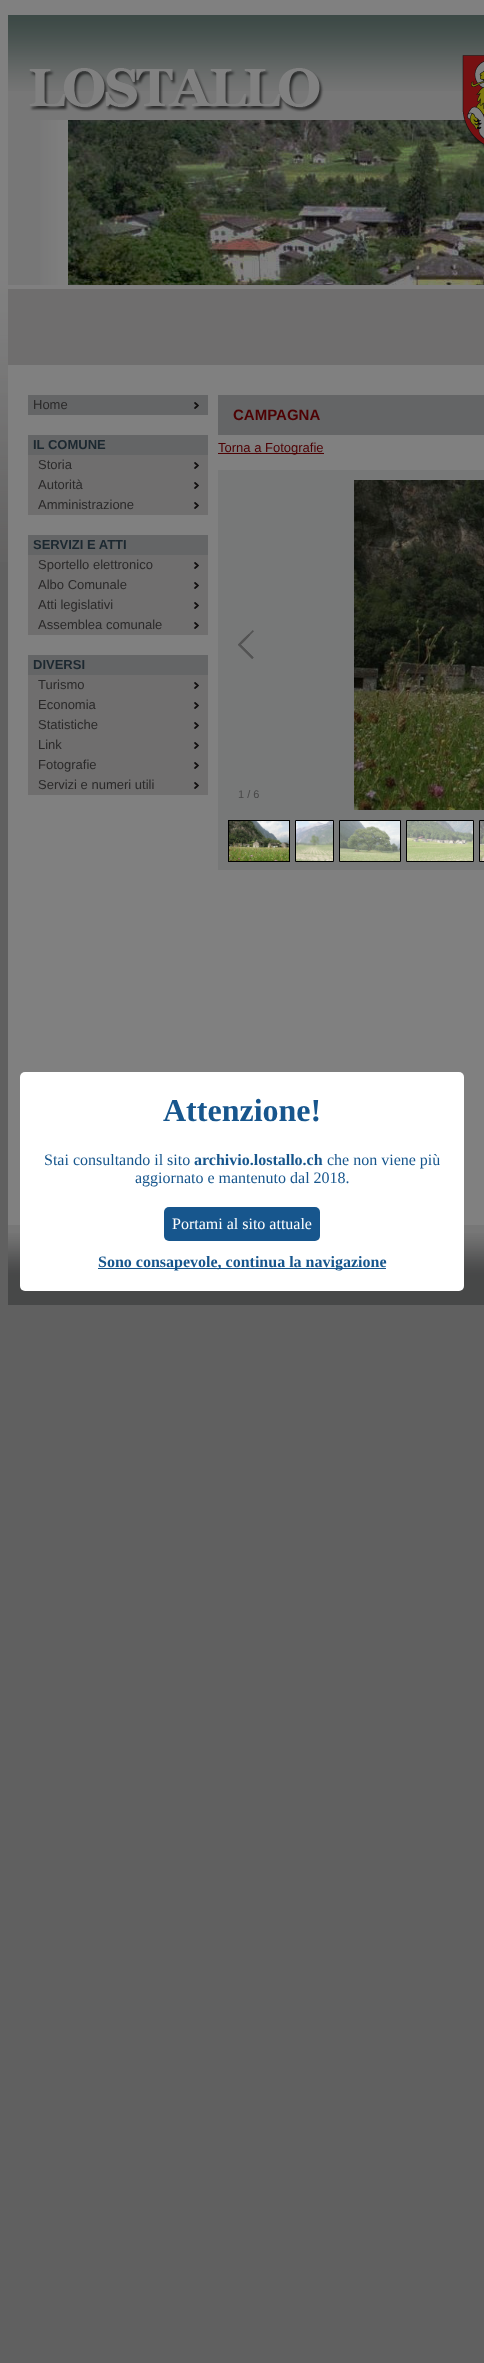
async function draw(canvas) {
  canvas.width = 484;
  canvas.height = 2363;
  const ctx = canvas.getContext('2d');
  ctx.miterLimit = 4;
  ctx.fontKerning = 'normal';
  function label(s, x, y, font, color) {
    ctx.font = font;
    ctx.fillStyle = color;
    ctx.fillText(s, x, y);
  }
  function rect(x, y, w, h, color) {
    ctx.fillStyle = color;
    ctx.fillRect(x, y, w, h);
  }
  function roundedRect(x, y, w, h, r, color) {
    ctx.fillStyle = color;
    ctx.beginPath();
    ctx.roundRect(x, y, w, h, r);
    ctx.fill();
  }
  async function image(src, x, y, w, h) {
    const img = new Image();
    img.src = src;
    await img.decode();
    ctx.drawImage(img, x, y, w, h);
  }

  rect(0, 0, 484, 2363, '#606060');
  await image('assets/img1.png', 0, 0, 484, 562);
  rect(8, 312, 476, 913, '#808080');
  rect(8, 91, 457, 194, '#777');
  await image('assets/img2.png', 8, 15, 476, 76);
  await image('assets/img5.png', 68, 120, 416, 165);
  await image('assets/img3.png', 462, 55, 22, 93);
  await image('assets/img4.png', 40, 120, 28, 165);
  await image('assets/img6.png', 29, 68, 295, 44);
  rect(8, 289, 476, 76, '#6f6e6e');
  rect(28, 395, 180, 20, '#646566');
  await image('assets/img7.png', 194, 402, 5, 7);
  label('Home', 33, 409, '13px Liberation Sans', '#2a2929');
  rect(28, 435, 180, 20, '#646566');
  label('IL COMUNE', 33, 449, 'bold 13px Liberation Sans', '#1c2830');
  rect(28, 455, 180, 60, '#6f6e6e');
  await image('assets/img8.png', 194, 462, 5, 7);
  label('Storia', 38, 469, '13px Liberation Sans', '#2a2929');
  await image('assets/img8.png', 194, 482, 5, 7);
  label('Autorità', 38, 489, '13px Liberation Sans', '#2a2929');
  await image('assets/img8.png', 194, 502, 5, 7);
  label('Amministrazione', 38, 509, '13px Liberation Sans', '#2a2929');
  rect(28, 535, 180, 20, '#646566');
  label('SERVIZI E ATTI', 33, 549, 'bold 13px Liberation Sans', '#1c2830');
  rect(28, 555, 180, 80, '#6f6e6e');
  await image('assets/img8.png', 194, 562, 5, 7);
  label('Sportello elettronico', 38, 569, '13px Liberation Sans', '#2a2929');
  await image('assets/img8.png', 194, 582, 5, 7);
  label('Albo Comunale', 38, 589, '13px Liberation Sans', '#2a2929');
  await image('assets/img8.png', 194, 602, 5, 7);
  label('Atti legislativi', 38, 609, '13px Liberation Sans', '#2a2929');
  await image('assets/img8.png', 194, 622, 5, 7);
  label('Assemblea comunale', 38, 629, '13px Liberation Sans', '#2a2929');
  rect(28, 655, 180, 20, '#646566');
  label('DIVERSI', 33, 669, 'bold 13px Liberation Sans', '#1c2830');
  rect(28, 675, 180, 120, '#6f6e6e');
  await image('assets/img8.png', 194, 682, 5, 7);
  label('Turismo', 38, 689, '13px Liberation Sans', '#2a2929');
  await image('assets/img8.png', 194, 702, 5, 7);
  label('Economia', 38, 709, '13px Liberation Sans', '#2a2929');
  await image('assets/img8.png', 194, 722, 5, 7);
  label('Statistiche', 38, 729, '13px Liberation Sans', '#2a2929');
  await image('assets/img8.png', 194, 742, 5, 7);
  label('Link', 38, 749, '13px Liberation Sans', '#2a2929');
  await image('assets/img8.png', 194, 762, 5, 7);
  label('Fotografie', 38, 769, '13px Liberation Sans', '#2a2929');
  await image('assets/img8.png', 194, 782, 5, 7);
  label('Servizi e numeri utili', 38, 789, '13px Liberation Sans', '#2a2929');
  rect(218, 395, 266, 40, '#646566');
  label('CAMPAGNA', 233, 420, 'bold 15px Liberation Sans', '#4e0103');
  rect(218, 453, 106, 1, '#4e0103');
  label('Torna a Fotografie', 218, 452, '13px Liberation Sans', '#4e0103');
  rect(218, 470, 266, 400, '#777878');
  await image('assets/img9.png', 238, 630, 16, 29);
  await image('assets/img10.png', 354, 480, 130, 330);
  label('1 / 6', 238, 798, '11px Liberation Sans', '#484848');
  ctx.strokeStyle = '#000';
  ctx.strokeRect(228.5, 820.5, 61, 41);
  await image('assets/img11.png', 229, 821, 60, 40);
  ctx.fillStyle = '#eeefef';
  ctx.beginPath();
  ctx.rect(295.5, 820.5, 38, 41);
  ctx.fill();
  ctx.stroke();
  await image('assets/img12.png', 296, 821, 37, 40);
  ctx.beginPath();
  ctx.rect(339.5, 820.5, 61, 41);
  ctx.fill();
  ctx.stroke();
  await image('assets/img13.png', 340, 821, 60, 40);
  ctx.beginPath();
  ctx.rect(406.5, 820.5, 67, 41);
  ctx.fill();
  ctx.stroke();
  await image('assets/img14.png', 407, 821, 66, 40);
  ctx.beginPath();
  ctx.rect(479.5, 820.5, 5, 41);
  ctx.fill();
  ctx.stroke();
  await image('assets/img15.png', 480, 821, 4, 40);
  rect(8, 1225, 476, 8, '#777');
  await image('assets/img16.png', 8, 1233, 476, 72);
  roundedRect(20, 1072, 444, 219, 5, '#fff');
  label('Attenzione!', 163, 1121, 'bold 32px Liberation Serif', '#17568d');
  label('Stai consultando il sito', 44, 1165, '16px Liberation Serif', '#17568d');
  label('archivio.lostallo.ch', 194, 1165, 'bold 16px Liberation Serif', '#17568d');
  label('che non viene più', 327, 1165, '16px Liberation Serif', '#17568d');
  label('aggiornato e mantenuto dal 2018.', 135, 1183, '16px Liberation Serif', '#17568d');
  roundedRect(164, 1207, 156, 34, 5, '#17568d');
  label('Portami al sito attuale', 172, 1229, '16px Liberation Serif', '#fff');
  rect(98, 1268, 288, 1, '#17568d');
  label('Sono consapevole, continua la navigazione', 98, 1267, 'bold 16px Liberation Serif', '#17568d');
}

draw(document.querySelector('canvas'));
